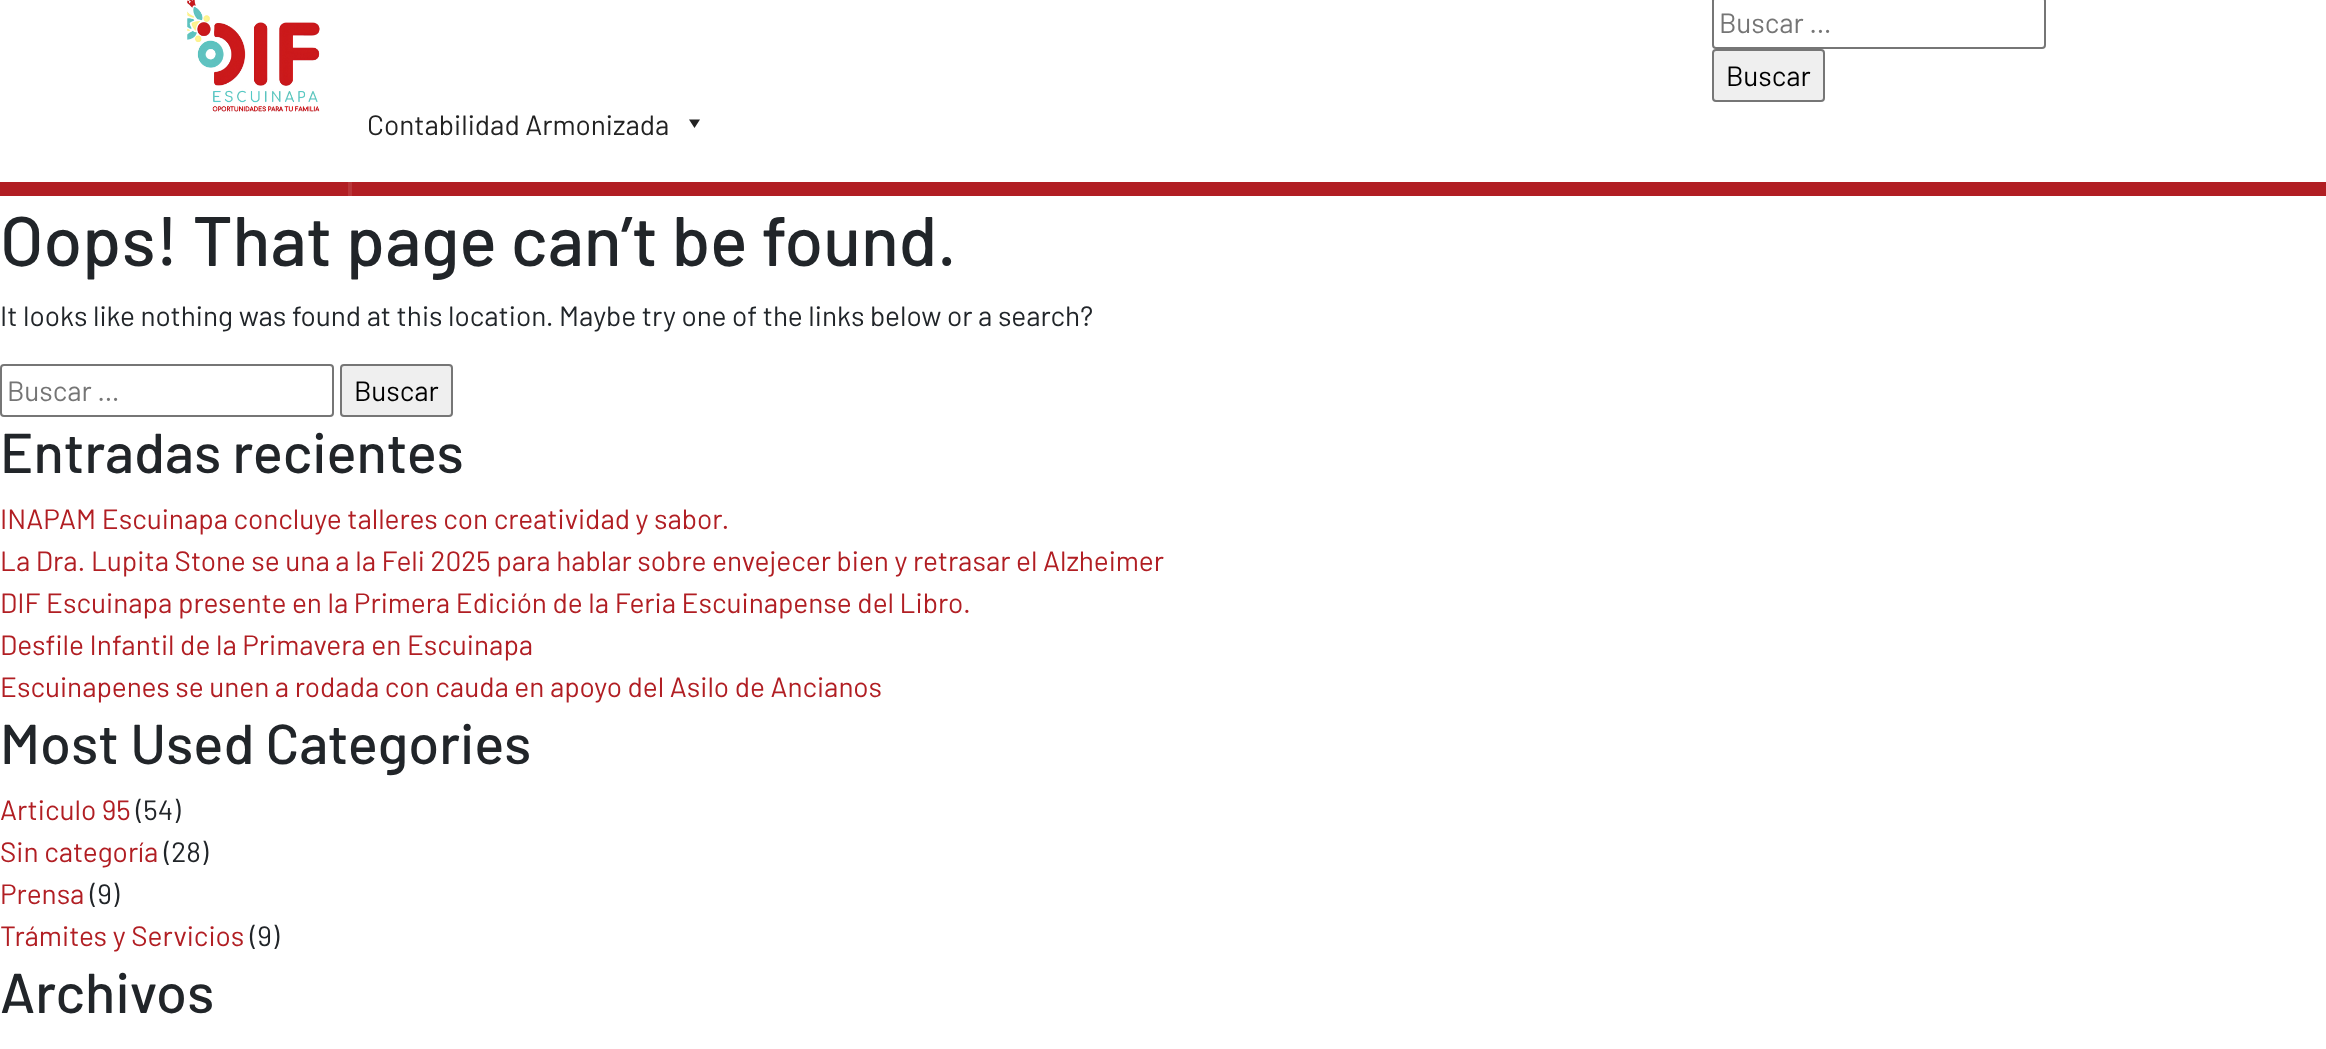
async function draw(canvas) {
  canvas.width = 2326;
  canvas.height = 1049;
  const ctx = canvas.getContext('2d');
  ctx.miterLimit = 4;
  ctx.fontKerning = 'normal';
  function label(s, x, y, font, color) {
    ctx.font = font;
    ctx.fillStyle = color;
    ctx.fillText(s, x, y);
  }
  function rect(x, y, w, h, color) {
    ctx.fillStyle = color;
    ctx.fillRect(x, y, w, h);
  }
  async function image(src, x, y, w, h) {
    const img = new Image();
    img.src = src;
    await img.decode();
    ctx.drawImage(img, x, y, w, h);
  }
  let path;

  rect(0, 0, 2326, 1049, '#fff');
  rect(0, 182, 2326, 14, '#b11e23');
  rect(348, 182, 4, 14, '#b93539');
  await image('assets/img1.png', 187, 0, 133, 112);
  ctx.beginPath();
  ctx.roundRect(1713, -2, 332, 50, 3);
  ctx.strokeStyle = '#767676';
  ctx.lineWidth = 2;
  ctx.stroke();
  label('Buscar …', 1719, 33, '28px Barlow', '#757575');
  ctx.fillStyle = '#efefef';
  ctx.beginPath();
  ctx.roundRect(1713, 50, 111, 51, 3);
  ctx.fill();
  ctx.stroke();
  label('Buscar', 1726, 86, '28px Barlow', '#000');
  label('Contabilidad Armonizada', 367, 135, '28px Barlow', '#222');
  path = new Path2D('M700 119.5L694.5 128L689 119.5Z');
  ctx.fill(path);
  label('Oops! That page can’t be found.', 0, 266, '500 70px Barlow', '#212529');
  label('It looks like nothing was found at this location. Maybe try one of the links below or a search?', 0, 326, '28px Barlow', '#212529');
  ctx.beginPath();
  ctx.roundRect(1, 365, 332, 51, 3);
  ctx.stroke();
  label('Buscar …', 7, 401, '28px Barlow', '#757575');
  ctx.fillStyle = '#efefef';
  ctx.beginPath();
  ctx.roundRect(341, 365, 111, 51, 3);
  ctx.fill();
  ctx.stroke();
  label('Buscar', 354, 401, '28px Barlow', '#000');
  label('Entradas recientes', 0, 473, '500 56px Barlow', '#212529');
  label('INAPAM Escuinapa concluye talleres con creatividad y sabor.', 0, 529, '28px Barlow', '#b11e23');
  label('La Dra. Lupita Stone se una a la Feli 2025 para hablar sobre envejecer bien y retrasar el Alzheimer', 0, 571, '28px Barlow', '#b11e23');
  label('DIF Escuinapa presente en la Primera Edición de la Feria Escuinapense del Libro.', 0, 613, '28px Barlow', '#b11e23');
  label('Desfile Infantil de la Primavera en Escuinapa', 0, 655, '28px Barlow', '#b11e23');
  label('Escuinapenes se unen a rodada con cauda en apoyo del Asilo de Ancianos', 0, 697, '28px Barlow', '#b11e23');
  label('Most Used Categories', 0, 764, '500 56px Barlow', '#212529');
  label('Articulo 95', 0, 820, '28px Barlow', '#b11e23');
  label('(54)', 136, 820, '28px Barlow', '#212529');
  label('Sin categoría', 0, 862, '28px Barlow', '#b11e23');
  label('(28)', 164, 862, '28px Barlow', '#212529');
  label('Prensa', 0, 904, '28px Barlow', '#b11e23');
  label('(9)', 90, 904, '28px Barlow', '#212529');
  label('Trámites y Servicios', 0, 946, '28px Barlow', '#b11e23');
  label('(9)', 250, 946, '28px Barlow', '#212529');
  label('Archivos', 0, 1013, '500 56px Barlow', '#212529');
}

draw(document.querySelector('canvas'));
